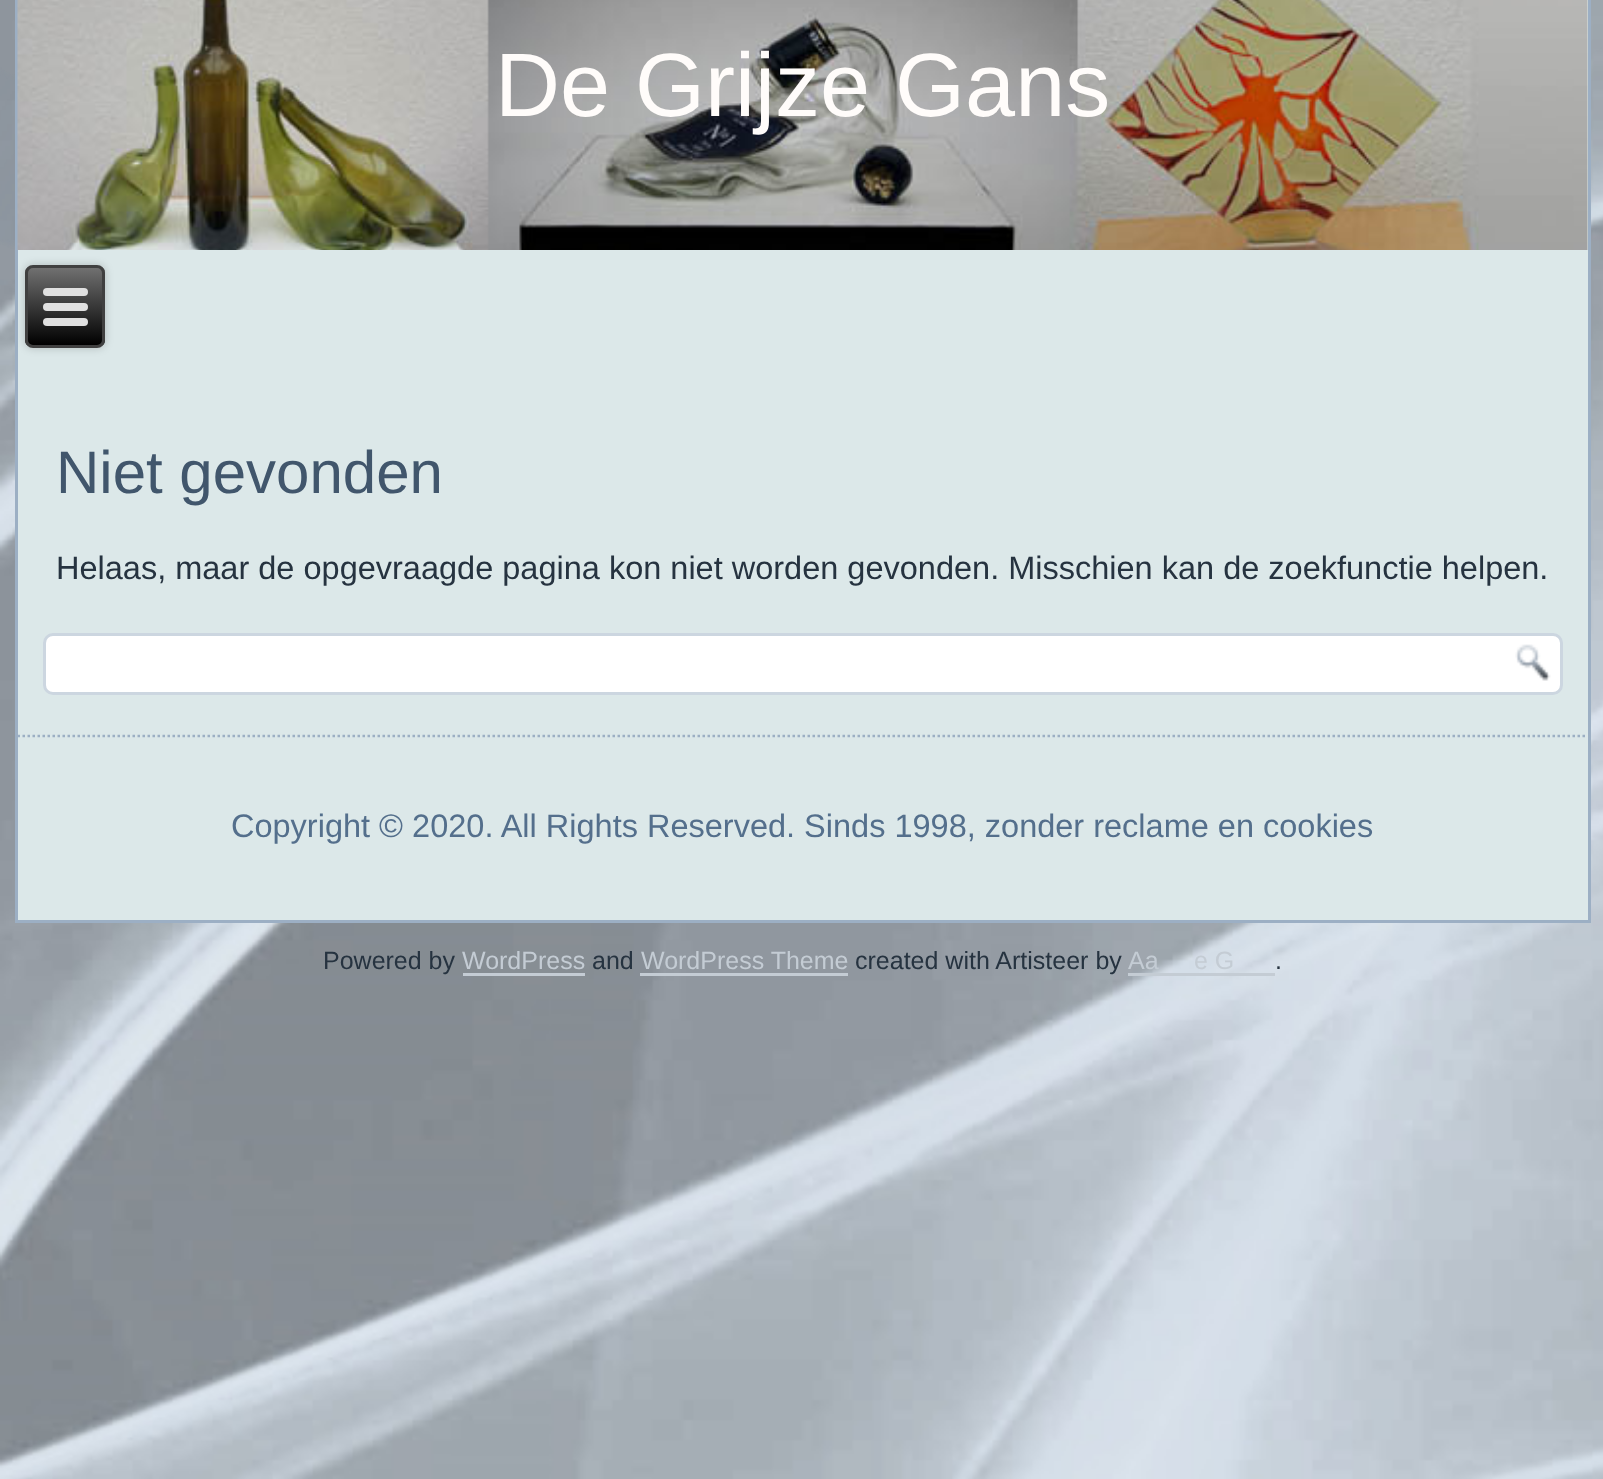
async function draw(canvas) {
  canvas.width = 1603;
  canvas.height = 1479;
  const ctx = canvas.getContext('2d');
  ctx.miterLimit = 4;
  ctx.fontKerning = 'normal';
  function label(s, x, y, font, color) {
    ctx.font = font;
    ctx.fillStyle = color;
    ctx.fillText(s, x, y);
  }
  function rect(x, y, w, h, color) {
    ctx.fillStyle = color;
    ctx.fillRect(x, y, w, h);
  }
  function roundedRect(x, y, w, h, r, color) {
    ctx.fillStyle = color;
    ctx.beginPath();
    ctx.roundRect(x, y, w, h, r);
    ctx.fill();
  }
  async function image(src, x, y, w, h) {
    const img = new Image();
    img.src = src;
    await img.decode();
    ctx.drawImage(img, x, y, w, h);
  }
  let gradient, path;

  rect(0, 0, 1603, 1479, '#fff');
  await image('assets/img1.png', 0, 0, 1603, 1479);
  rect(18, 0, 1570, 920, '#dce8e9');
  rect(1588, 0, 3, 923, '#9cafc4');
  rect(15, 920, 1575, 3, '#9cafc4');
  rect(15, 0, 3, 923, '#9cafc4');
  await image('assets/img2.png', 17, 0, 1571, 250);
  label('De Grijze Gans', 495, 116, '90px Liberation Sans', '#fffcfa');
  ctx.fillStyle = '#00000033';
  ctx.filter = 'blur(4px)';
  ctx.beginPath();
  ctx.roundRect(25, 265, 80, 83, 8);
  ctx.fill();
  ctx.filter = 'none';
  ctx.save();
  ctx.beginPath();
  ctx.roundRect(25, 265, 80, 83, 8);
  ctx.clip();
  gradient = ctx.createLinearGradient(65, 268, 65, 345);
  gradient.addColorStop(0, '#707070');
  gradient.addColorStop(1, '#000');
  ctx.fillStyle = gradient;
  ctx.fillRect(25, 268, 80, 77);
  ctx.restore();
  ctx.beginPath();
  ctx.roundRect(26.5, 266.5, 77, 80, 6.5);
  ctx.strokeStyle = '#404040';
  ctx.lineWidth = 3;
  ctx.stroke();
  roundedRect(43, 288, 45, 8, 4, '#e0e0e0');
  roundedRect(43, 303, 45, 8, 4, '#e0e0e0');
  roundedRect(43, 318, 45, 8, 4, '#e0e0e0');
  label('Niet gevonden', 56, 493, '60px Liberation Sans', '#41566c');
  label('Helaas, maar de opgevraagde pagina kon niet worden gevonden. Misschien kan de zoekfunctie helpen.', 56, 579, '32.5px Liberation Sans', '#263340');
  ctx.fillStyle = '#fff';
  ctx.beginPath();
  ctx.roundRect(44.5, 634.5, 1517, 59, 8.5);
  ctx.fill();
  ctx.strokeStyle = '#ccd6e0';
  ctx.stroke();
  await image('assets/img3.png', 1515, 644, 36, 37);
  path = new Path2D('M17.5 736H1587.5');
  ctx.strokeStyle = '#9cafc4';
  ctx.lineWidth = 2.5;
  ctx.setLineDash([2.5, 2.5]);
  ctx.stroke(path);
  label('Copyright © 2020. All Rights Reserved. Sinds 1998, zonder reclame en cookies', 231, 837, '32.5px Liberation Sans', '#546f8c');
  label('Powered by', 323, 969, '25px Liberation Sans', '#263340');
  label('WordPress', 462, 969, '25px Liberation Sans', '#c4ccd4');
  rect(463, 973, 122, 3, '#c4ccd4');
  label('and', 592, 969, '25px Liberation Sans', '#263340');
  label('WordPress Theme', 641, 969, '25px Liberation Sans', '#c4ccd4');
  rect(640, 973, 208, 3, '#c4ccd4');
  label('created with Artisteer by', 855, 969, '25px Liberation Sans', '#263340');
  label('Aa', 1128, 969, '25px Liberation Sans', '#c4ccd4');
  label('e G', 1194, 969, '25px Liberation Sans', '#c4ccd4');
  label('.', 1275, 969, '25px Liberation Sans', '#263340');
  rect(1128, 973, 147, 3, '#c4ccd4');
}

draw(document.querySelector('canvas'));
